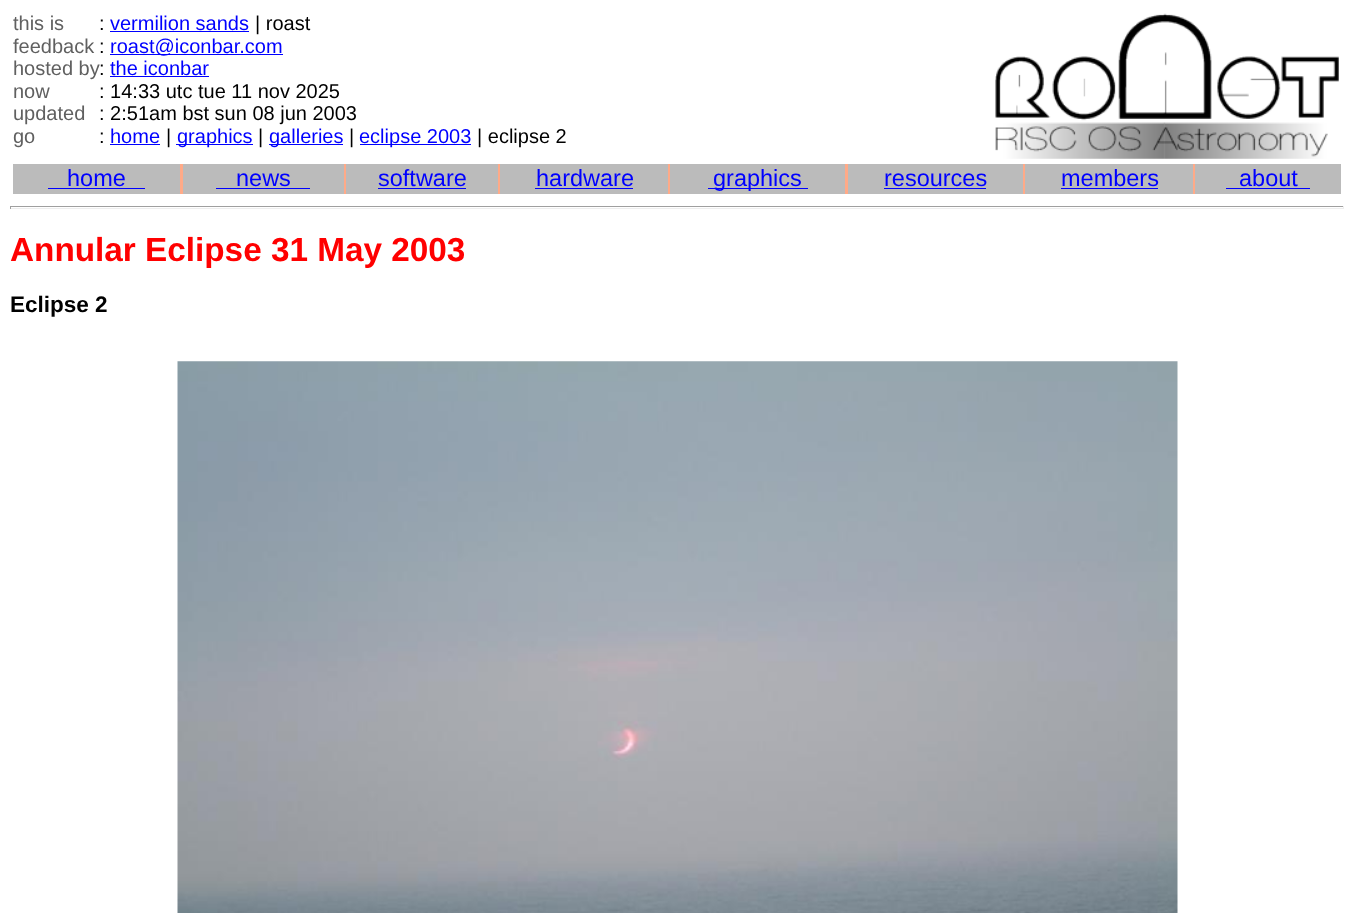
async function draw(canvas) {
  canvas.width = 1353;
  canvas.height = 913;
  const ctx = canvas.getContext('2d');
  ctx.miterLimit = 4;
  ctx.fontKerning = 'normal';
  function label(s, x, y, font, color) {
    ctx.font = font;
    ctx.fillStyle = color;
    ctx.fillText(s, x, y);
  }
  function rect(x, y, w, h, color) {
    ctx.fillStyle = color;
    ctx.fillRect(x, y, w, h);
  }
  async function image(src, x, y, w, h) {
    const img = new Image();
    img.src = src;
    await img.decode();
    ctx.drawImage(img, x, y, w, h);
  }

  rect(0, 0, 1353, 913, '#fff');
  label('this is', 13, 30, '20px Liberation Sans', '#606060');
  label(':', 99, 30, '20px Liberation Sans', '#000');
  label('vermilion sands', 110, 30, '20px Liberation Sans', '#00f');
  rect(110, 31, 139, 1, '#00f');
  label('| roast', 255, 30, '20px Liberation Sans', '#000');
  label('feedback', 13, 53, '20px Liberation Sans', '#606060');
  label(':', 99, 53, '20px Liberation Sans', '#000');
  rect(110, 54, 173, 1, '#00f');
  label('roast@iconbar.com', 110, 53, '20px Liberation Sans', '#00f');
  label('hosted by', 13, 75, '20px Liberation Sans', '#606060');
  label(':', 99, 75, '20px Liberation Sans', '#000');
  label('the iconbar', 110, 75, '20px Liberation Sans', '#00f');
  rect(110, 76, 99, 1, '#00f');
  label('now', 13, 98, '20px Liberation Sans', '#606060');
  label(': 14:33 utc tue 11 nov 2025', 99, 98, '20px Liberation Sans', '#000');
  label('updated', 13, 120, '20px Liberation Sans', '#606060');
  label(': 2:51am bst sun 08 jun 2003', 99, 120, '20px Liberation Sans', '#000');
  label('go', 13, 143, '20px Liberation Sans', '#606060');
  label(':', 99, 143, '20px Liberation Sans', '#000');
  label('home', 110, 143, '20px Liberation Sans', '#00f');
  rect(110, 144, 50, 1, '#00f');
  label('|', 166, 143, '20px Liberation Sans', '#000');
  rect(176, 144, 77, 1, '#00f');
  label('graphics', 177, 143, '20px Liberation Sans', '#00f');
  label('|', 258, 143, '20px Liberation Sans', '#000');
  rect(269, 144, 74, 1, '#00f');
  label('galleries', 269, 143, '20px Liberation Sans', '#00f');
  label('|', 349, 143, '20px Liberation Sans', '#000');
  rect(360, 144, 111, 1, '#00f');
  label('eclipse 2003', 359, 143, '20px Liberation Sans', '#00f');
  label('| eclipse 2', 477, 143, '20px Liberation Sans', '#000');
  await image('assets/img1.png', 995, 13, 344, 146);
  rect(180, 164, 1015, 30, '#fa8');
  rect(13, 164, 167, 30, '#bbb');
  label('home', 67, 186, '23.5px Liberation Sans', '#00f');
  rect(48, 188, 97, 1, '#00f');
  rect(183, 164, 161, 30, '#bbb');
  label('news', 236, 186, '23.5px Liberation Sans', '#00f');
  rect(216, 188, 94, 1, '#00f');
  rect(346, 164, 152, 30, '#bbb');
  label('software', 378, 186, '23.5px Liberation Sans', '#00f');
  rect(378, 188, 88, 1, '#00f');
  rect(500, 164, 168, 30, '#bbb');
  label('hardware', 536, 186, '23.5px Liberation Sans', '#00f');
  rect(535, 188, 98, 1, '#00f');
  rect(670, 164, 175, 30, '#bbb');
  rect(708, 188, 100, 1, '#00f');
  label('graphics', 713, 186, '23.5px Liberation Sans', '#00f');
  rect(848, 164, 175, 30, '#bbb');
  label('resources', 884, 186, '23.5px Liberation Sans', '#00f');
  rect(884, 188, 102, 1, '#00f');
  rect(1025, 164, 168, 30, '#bbb');
  label('members', 1061, 186, '23.5px Liberation Sans', '#00f');
  rect(1061, 188, 97, 1, '#00f');
  rect(1195, 164, 146, 30, '#bbb');
  label('about', 1239, 186, '23.5px Liberation Sans', '#00f');
  rect(1226, 188, 84, 1, '#00f');
  rect(10, 206, 1334, 1, '#9f9f9f');
  rect(1343, 206, 1, 3, '#eee');
  rect(10, 208, 1334, 1, '#eee');
  rect(10, 206, 1, 3, '#9f9f9f');
  label('Annular Eclipse 31 May 2003', 10, 261, 'bold 33.3px Liberation Sans', '#f00');
  label('Eclipse 2', 10, 312, 'bold 22.5px Liberation Sans', '#000');
  await image('assets/img2.png', 177, 361, 1001, 552);
}

draw(document.querySelector('canvas'));
